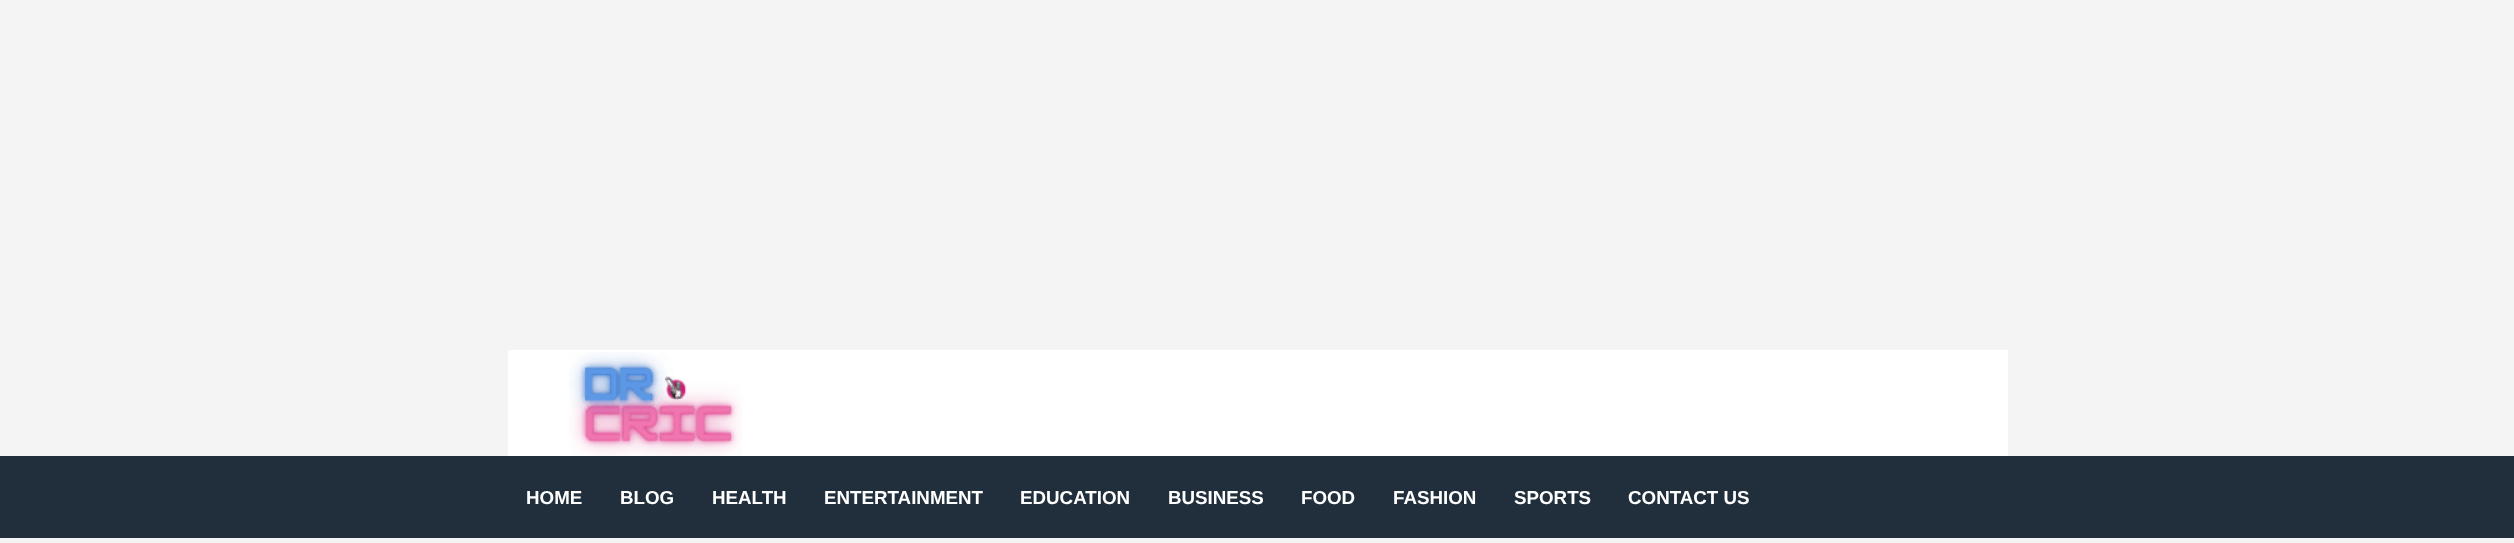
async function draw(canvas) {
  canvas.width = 2514;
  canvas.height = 543;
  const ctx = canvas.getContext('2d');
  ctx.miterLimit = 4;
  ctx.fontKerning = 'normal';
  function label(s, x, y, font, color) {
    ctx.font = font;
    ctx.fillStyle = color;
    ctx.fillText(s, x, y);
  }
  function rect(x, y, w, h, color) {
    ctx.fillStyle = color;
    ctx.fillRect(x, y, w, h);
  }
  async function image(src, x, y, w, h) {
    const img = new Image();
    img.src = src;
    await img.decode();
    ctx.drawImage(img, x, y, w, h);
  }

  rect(0, 0, 2514, 543, '#f4f4f4');
  rect(508, 350, 1500, 106, '#fff');
  await image('assets/img1.png', 569, 352, 173, 104);
  rect(0, 456, 2514, 82, '#212f3c');
  label('HOME', 526, 504, 'bold 18.75px Liberation Sans', '#fff');
  label('BLOG', 620, 504, 'bold 18.75px Liberation Sans', '#fff');
  label('HEALTH', 712, 504, 'bold 18.75px Liberation Sans', '#fff');
  label('ENTERTAINMENT', 824, 504, 'bold 18.75px Liberation Sans', '#fff');
  label('EDUCATION', 1020, 504, 'bold 18.75px Liberation Sans', '#fff');
  label('BUSINESS', 1168, 504, 'bold 18.75px Liberation Sans', '#fff');
  label('FOOD', 1301, 504, 'bold 18.75px Liberation Sans', '#fff');
  label('FASHION', 1393, 504, 'bold 18.75px Liberation Sans', '#fff');
  label('SPORTS', 1514, 504, 'bold 18.75px Liberation Sans', '#fff');
  label('CONTACT US', 1628, 504, 'bold 18.75px Liberation Sans', '#fff');
}

draw(document.querySelector('canvas'));
